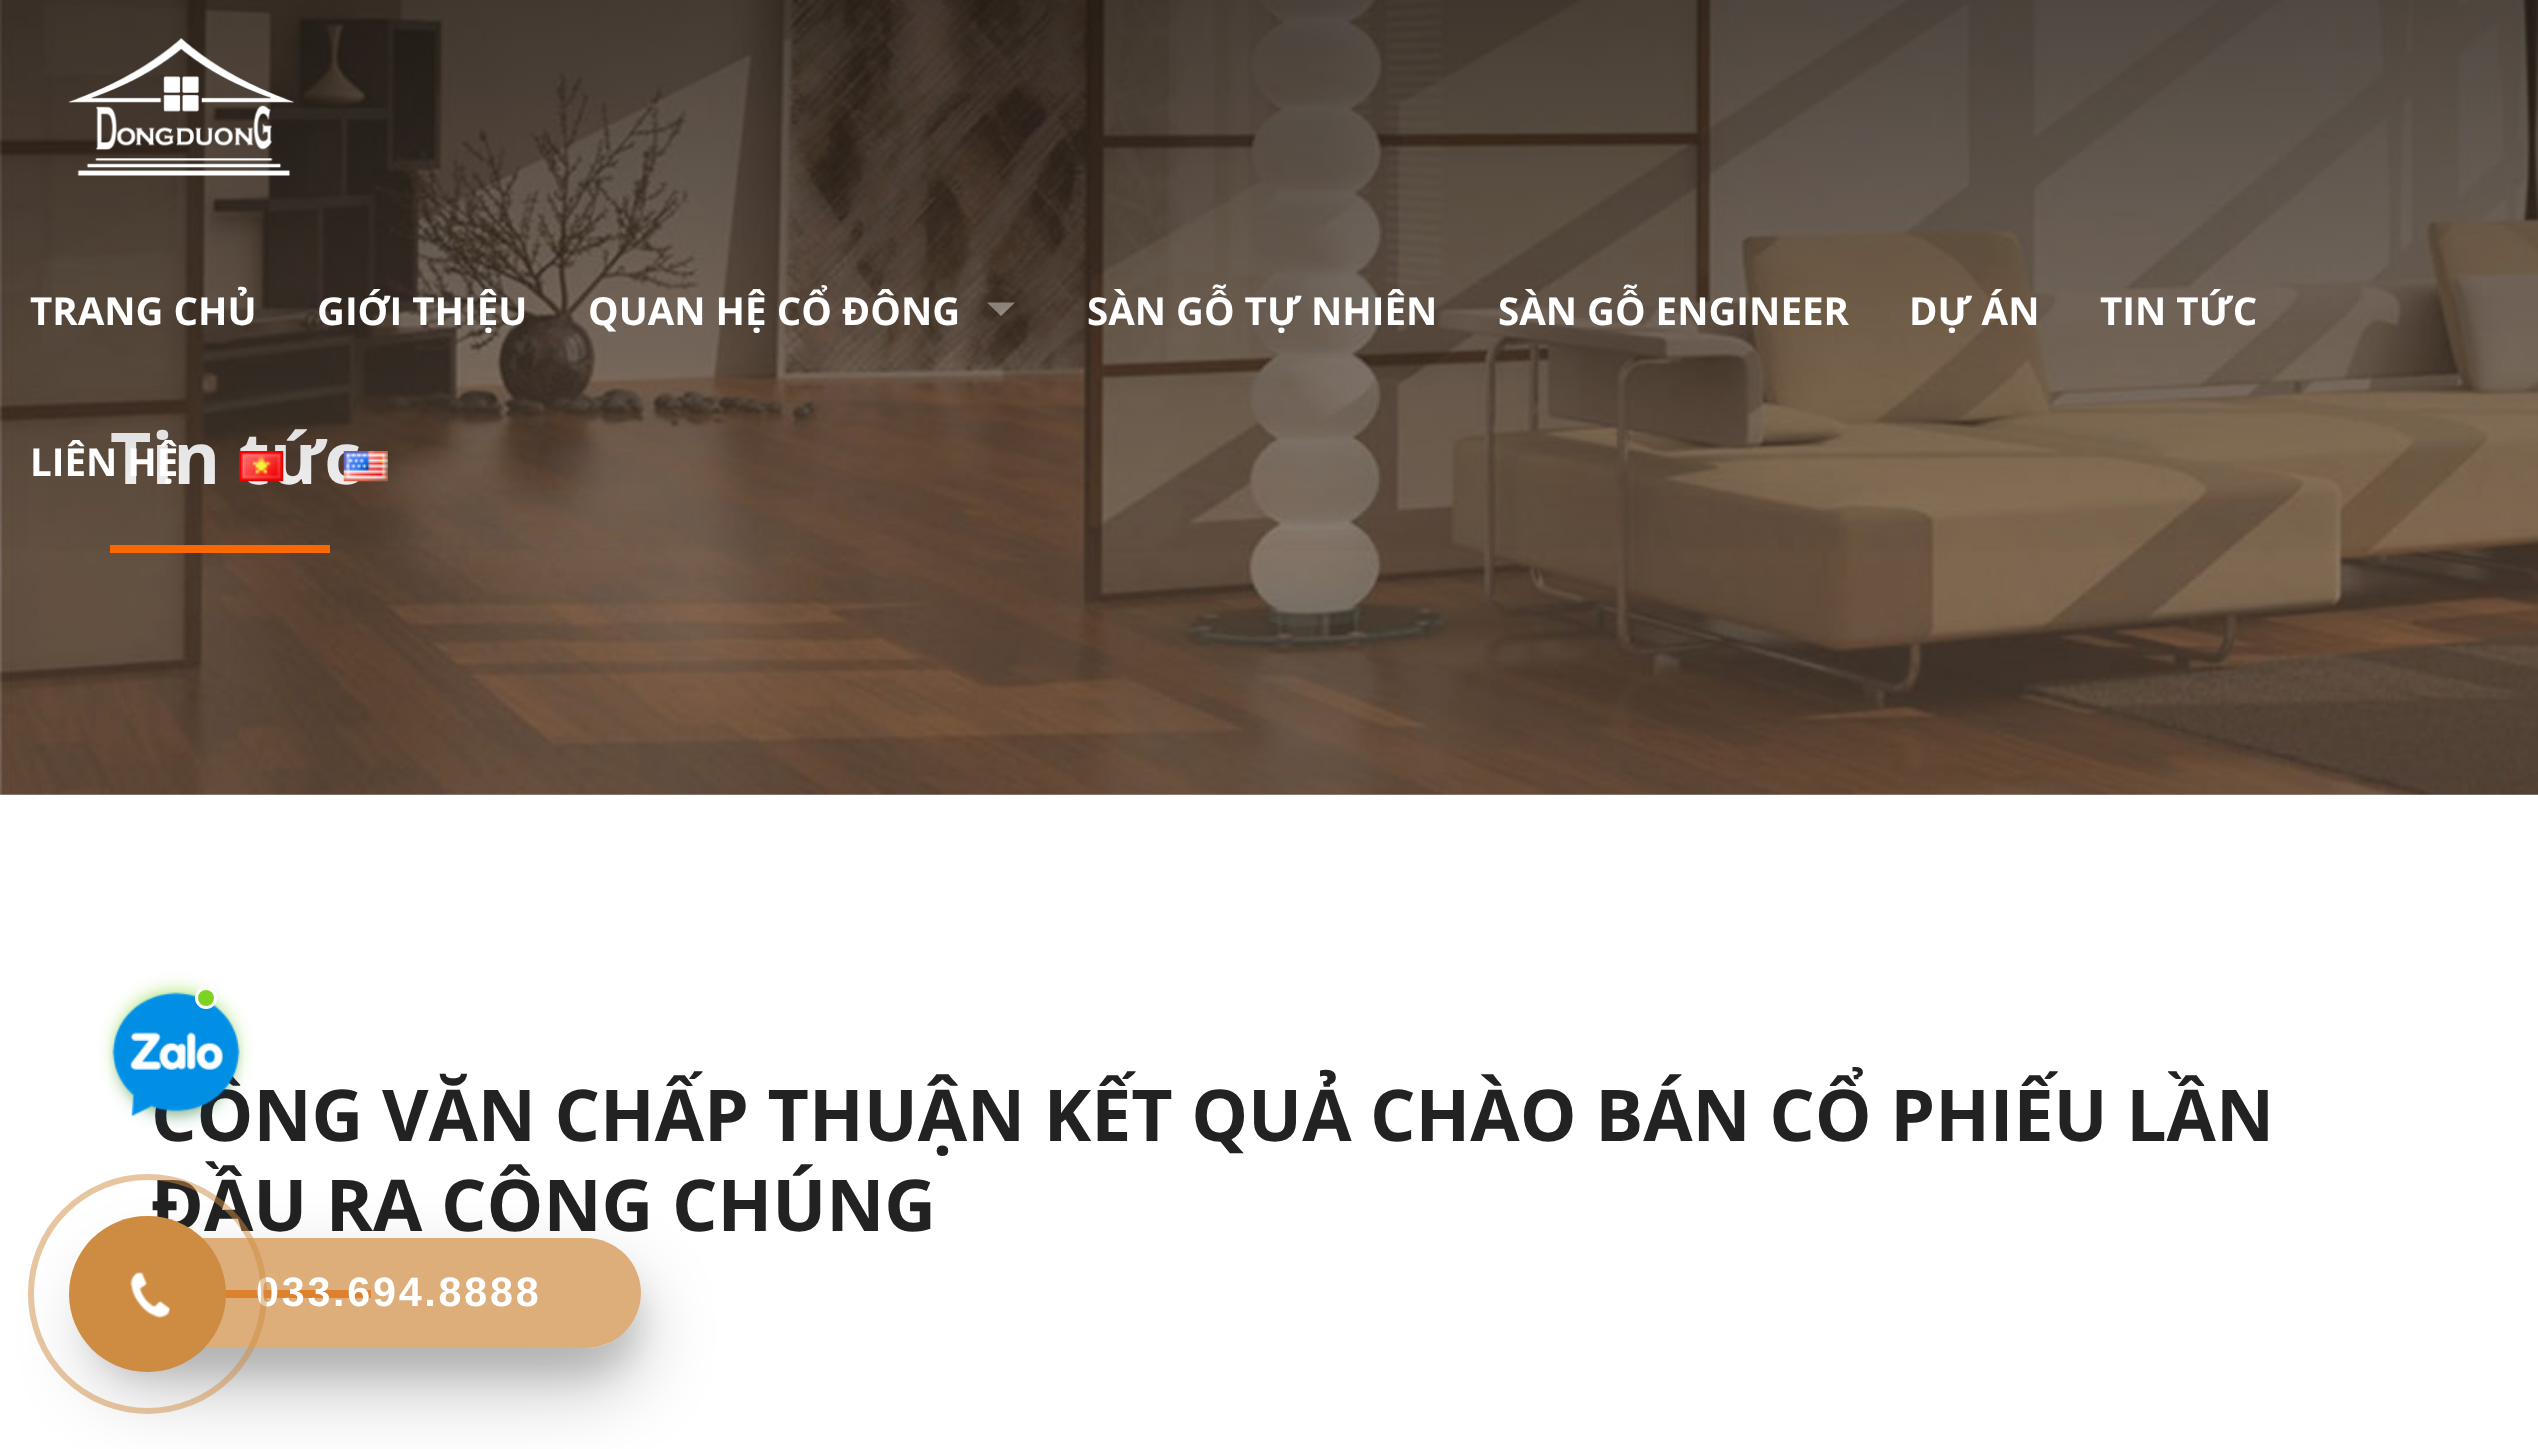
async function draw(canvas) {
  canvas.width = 2538;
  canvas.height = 1449;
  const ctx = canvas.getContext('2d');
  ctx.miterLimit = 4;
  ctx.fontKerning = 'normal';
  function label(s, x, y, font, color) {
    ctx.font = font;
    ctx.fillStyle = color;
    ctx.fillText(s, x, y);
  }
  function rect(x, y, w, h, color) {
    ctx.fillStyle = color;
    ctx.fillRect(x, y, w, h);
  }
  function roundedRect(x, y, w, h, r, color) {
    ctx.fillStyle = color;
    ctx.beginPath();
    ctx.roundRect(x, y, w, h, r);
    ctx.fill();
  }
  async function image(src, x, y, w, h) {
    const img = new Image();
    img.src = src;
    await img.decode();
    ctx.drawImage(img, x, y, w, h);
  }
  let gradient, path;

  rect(0, 0, 2538, 1449, '#fff');
  await image('assets/img4.png', 0, 0, 2538, 795);
  label('Tin tức', 110, 484, 'bold 71.5px Open Sans', '#fff');
  rect(110, 545, 220, 8, '#ff6a01');
  gradient = ctx.createLinearGradient(1269, 0, 1269, 597);
  gradient.addColorStop(0, '#00000073');
  gradient.addColorStop(0.97, '#00000000');
  ctx.fillStyle = gradient;
  ctx.fillRect(0, 0, 2538, 551);
  await image('assets/img1.png', 68, 38, 226, 138);
  label('TRANG CHỦ', 30, 325, 'bold 38.5px Open Sans', '#fff');
  label('GIỚI THIỆU', 317, 325, 'bold 38.5px Open Sans', '#fff');
  label('QUAN HỆ CỔ ĐÔNG', 588, 325, 'bold 38.5px Open Sans', '#fff');
  ctx.fillStyle = '#ffffff66';
  path = new Path2D('M987 302.5H1015L1001 316Z');
  ctx.fill(path);
  label('SÀN GỖ TỰ NHIÊN', 1087, 325, 'bold 38.5px Open Sans', '#fff');
  label('SÀN GỖ ENGINEER', 1498, 325, 'bold 38.5px Open Sans', '#fff');
  label('DỰ ÁN', 1909, 325, 'bold 38.5px Open Sans', '#fff');
  label('TIN TỨC', 2100, 325, 'bold 38.5px Open Sans', '#fff');
  label('LIÊN HỆ', 30, 476, 'bold 38.5px Open Sans', '#fff');
  await image('assets/img2.png', 239, 451, 45, 31);
  await image('assets/img3.png', 343, 451, 45, 31);
  ctx.fillStyle = '#7ed321';
  ctx.filter = 'blur(11px)';
  ctx.beginPath();
  ctx.roundRect(121, 996, 110, 110, 55);
  ctx.fill();
  ctx.filter = 'none';
  label('CÔNG VĂN CHẤP THUẬN KẾT QUẢ CHÀO BÁN CỔ PHIẾU LẦN', 151, 1141, 'bold 71.5px Open Sans', '#222');
  await image('assets/img5.png', 109, 992, 134, 136);
  ctx.fillStyle = '#7ed321';
  ctx.beginPath();
  ctx.arc(206, 998, 9.5, 0, 2 * Math.PI);
  ctx.fill();
  ctx.strokeStyle = '#fff';
  ctx.lineWidth = 3;
  ctx.stroke();
  label('ĐẦU RA CÔNG CHÚNG', 151, 1231, 'bold 71.5px Open Sans', '#222');
  rect(225, 1290, 146, 8, '#ff6a01');
  ctx.save();
  path = new Path2D('M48 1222H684V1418H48ZM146 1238H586C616.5 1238 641 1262.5 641 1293C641 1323.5 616.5 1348 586 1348H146C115.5 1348 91 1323.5 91 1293C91 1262.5 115.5 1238 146 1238Z');
  ctx.clip(path, 'evenodd');
  ctx.fillStyle = '#0000001a';
  ctx.filter = 'blur(14px)';
  ctx.beginPath();
  ctx.roundRect(91, 1265, 550, 110, 55);
  ctx.fill();
  ctx.filter = 'none';
  ctx.restore();
  ctx.save();
  path = new Path2D('M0 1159H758V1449H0ZM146 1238H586C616.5 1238 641 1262.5 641 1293C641 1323.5 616.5 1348 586 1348H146C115.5 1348 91 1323.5 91 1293C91 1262.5 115.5 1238 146 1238Z');
  ctx.clip(path, 'evenodd');
  ctx.fillStyle = '#00000040';
  ctx.filter = 'blur(38.5px)';
  ctx.beginPath();
  ctx.roundRect(91, 1276, 550, 110, 55);
  ctx.fill();
  ctx.filter = 'none';
  ctx.restore();
  roundedRect(91, 1238, 550, 110, 55, '#ce8b42b3');
  ctx.letterSpacing = '2.75px';
  label('033.694.8888', 256, 1306, 'bold 41.25px Liberation Sans', '#fff');
  ctx.beginPath();
  ctx.roundRect(31, 1177, 233, 234, 116.5);
  ctx.strokeStyle = '#ce8b4280';
  ctx.lineWidth = 6;
  ctx.stroke();
  roundedRect(69, 1216, 157, 156, 78, '#ce8b42');
  await image('assets/img6.png', 130, 1271, 40, 47);
}

draw(document.querySelector('canvas'));
